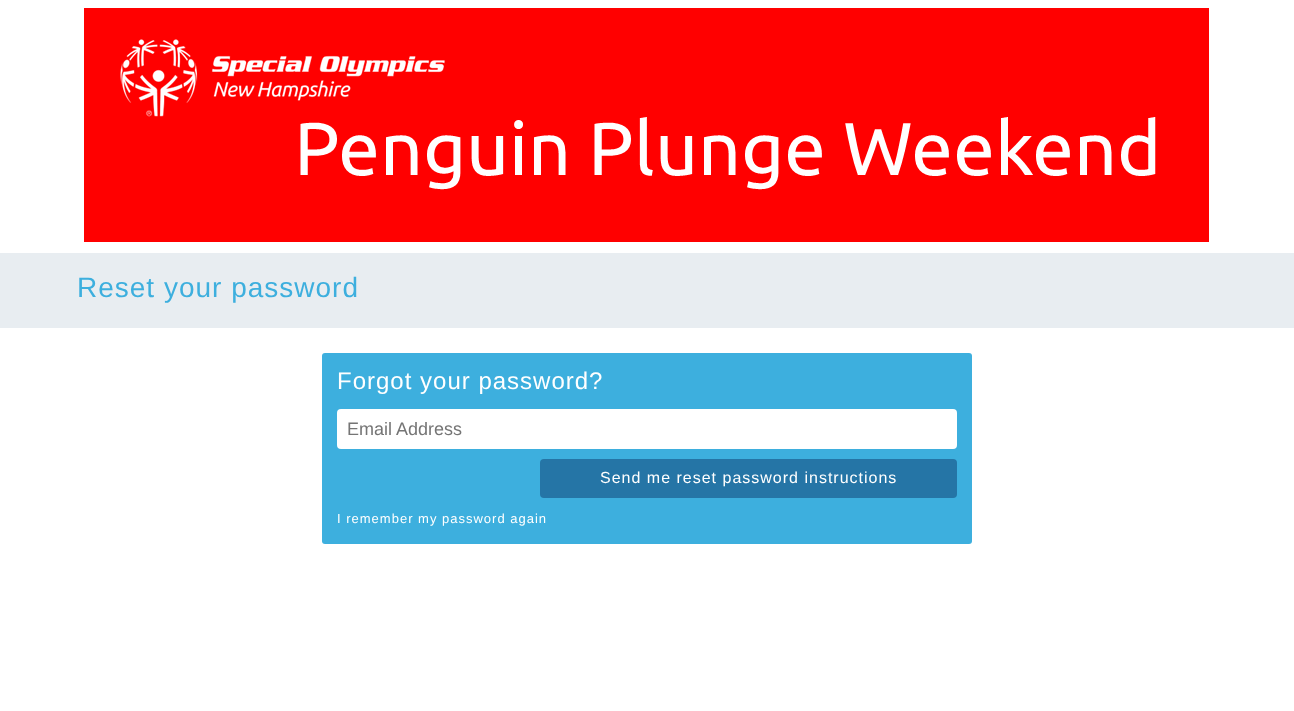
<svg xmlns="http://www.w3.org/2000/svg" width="1294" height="711">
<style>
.a{font:28px Liberation Sans;letter-spacing:1px;fill:#3dafde}
.b{font:24px Liberation Sans;letter-spacing:1px;fill:#fff}
.c{font:18px Liberation Sans;fill:#757575}
.d{font:16px Liberation Sans;letter-spacing:1px;fill:#fff}
.e{font:13px Liberation Sans;letter-spacing:1px;fill:#fff}
</style>
<rect width="100%" height="100%" fill="#fff"/>
<image href="1.png" x="84" y="8" width="1125" height="234"/>
<path fill="#e8edf1" d="M0 253h1294v75H0z"/>
<rect fill="#3dafde" x="322" y="353" width="650" height="191" rx="3"/>
<rect fill="#fff" x="337" y="409" width="620" height="40" rx="4"/>
<rect fill="#2575a6" x="540" y="459" width="417" height="39" rx="4"/>
<text class="a" x="77" y="297">Reset your password</text>
<text class="b" x="337" y="389">Forgot your password?</text>
<text class="c" x="347" y="435">Email Address</text>
<text class="d" x="600" y="483">Send me reset password instructions</text>
<text class="e" x="337" y="523">I remember my password again</text>
</svg>
